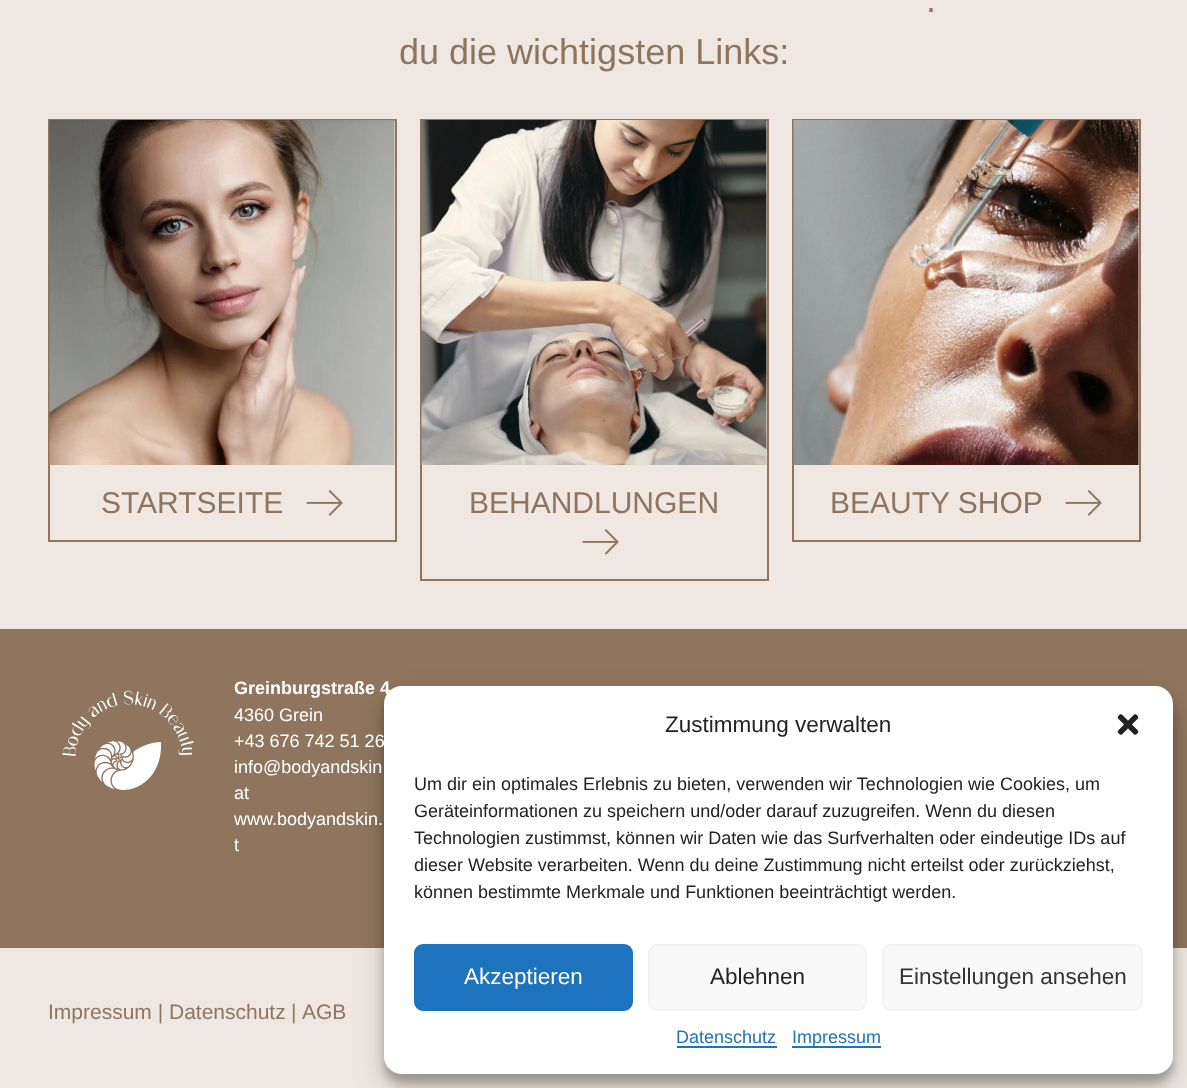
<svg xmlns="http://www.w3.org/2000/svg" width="1187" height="1088">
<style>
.a{font:36px Liberation Sans;fill:#8f755d}
.b{font:30px Liberation Sans;fill:#8f755d}
.c{font:bold 18px Liberation Sans;fill:#fff}
.d{font:18px Liberation Sans;fill:#fff}
.e{font:21px Liberation Sans;fill:#8f755d}
.f{font:22.5px Liberation Sans;fill:#222}
.g{font:18px Liberation Sans;fill:#222}
.h{font:22.5px Liberation Sans;fill:#fff}
.i{font:22.5px Liberation Sans;fill:#333}
.j{font:18px Liberation Sans;fill:#1e73be}
</style>
<rect width="100%" height="100%" fill="#efe8e2"/>
<path fill="#8f755d" d="M48 119h348v2H48z"/>
<path fill="#8f755d" d="M48 119h2v346H48z"/>
<path fill="#8f755d" d="M395 119h2v346H395z"/>
<image href="1.png" x="49" y="120" width="346" height="345"/>
<path fill="#8f755d" d="M395 465h2v77H395z"/>
<path fill="#8f755d" d="M48 540h348v2H48z"/>
<path fill="#8f755d" d="M48 465h2v77H48z"/>
<image href="2.png" x="306" y="490" width="37" height="26"/>
<path fill="#8f755d" d="M420 119h348v2H420z"/>
<path fill="#8f755d" d="M420 119h2v346H420z"/>
<path fill="#8f755d" d="M767 119h2v346H767z"/>
<image href="3.png" x="421" y="120" width="346" height="345"/>
<path fill="#8f755d" d="M767 465h2v116H767z"/>
<path fill="#8f755d" d="M420 579h348v2H420z"/>
<path fill="#8f755d" d="M420 465h2v116H420z"/>
<image href="2.png" x="582" y="529" width="37" height="26"/>
<path fill="#8f755d" d="M792 119h348v2H792z"/>
<path fill="#8f755d" d="M792 119h2v346H792z"/>
<path fill="#8f755d" d="M1139 119h2v346H1139z"/>
<image href="4.png" x="793" y="120" width="346" height="345"/>
<path fill="#8f755d" d="M1139 465h2v77H1139z"/>
<path fill="#8f755d" d="M792 540h348v2H792z"/>
<path fill="#8f755d" d="M792 465h2v77H792z"/>
<image href="2.png" x="1065" y="490" width="37" height="26"/>
<path fill="#8f755d" d="M0 629h1187v319H0z"/>
<image href="5.png" x="62" y="690" width="132" height="100"/>
<rect fill="#0000003b" filter="blur(4.5px)" x="384" y="695" width="789" height="388" rx="18"/>
<rect fill="#00000030" filter="blur(15px)" x="384" y="701" width="789" height="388" rx="18"/>
<rect fill="#fff" x="384" y="686" width="789" height="388" rx="18"/>
<image href="6.png" x="1117" y="714" width="22" height="21"/>
<rect fill="#1e73be" stroke="#1e73be" stroke-width="2" x="415" y="945" width="217" height="65" rx="8"/>
<rect fill="#f9f9f9" stroke="#f2f2f2" stroke-width="2" x="649" y="945" width="217" height="65" rx="8"/>
<rect fill="#f9f9f9" stroke="#f2f2f2" stroke-width="2" x="883" y="945" width="259" height="65" rx="8"/>
<path fill="#1e73be" d="M677 1046h100v2H677z"/>
<path fill="#1e73be" d="M792 1046h89v2H792z"/>
<text class="a" x="926" y="12">.</text>
<text class="a" x="399" y="64">du die wichtigsten Links:</text>
<text class="b" x="101" y="513">STARTSEITE</text>
<text class="b" x="469" y="513">BEHANDLUNGEN</text>
<text class="b" x="830" y="513">BEAUTY SHOP</text>
<text class="c" x="234" y="694">Greinburgstraße 4</text>
<text class="d" x="234" y="721">4360 Grein</text>
<text class="d" x="234" y="747">+43 676 742 51 26</text>
<text class="d" x="234" y="773">info@bodyandskin</text>
<text class="d" x="234" y="799">at</text>
<text class="d" x="234" y="825">www.bodyandskin.</text>
<text class="d" x="234" y="851">t</text>
<text class="e" x="48" y="1019">Impressum | Datenschutz</text>
<text class="e" x="291" y="1019">|</text>
<text class="e" x="302" y="1019">AGB</text>
<text class="f" x="665" y="732">Zustimmung verwalten</text>
<text class="g" x="414" y="790">Um dir ein optimales Erlebnis zu bieten, verwenden wir Technologien wie Cookies, um</text>
<text class="g" x="414" y="817">Geräteinformationen zu speichern und/oder darauf zuzugreifen. Wenn du diesen</text>
<text class="g" x="414" y="844">Technologien zustimmst, können wir Daten wie das Surfverhalten oder eindeutige IDs auf</text>
<text class="g" x="414" y="871">dieser Website verarbeiten. Wenn du deine Zustimmung nicht erteilst oder zurückziehst,</text>
<text class="g" x="414" y="898">können bestimmte Merkmale und Funktionen beeinträchtigt werden.</text>
<text class="h" x="464" y="984">Akzeptieren</text>
<text class="f" x="710" y="984">Ablehnen</text>
<text class="i" x="899" y="984">Einstellungen ansehen</text>
<text class="j" x="676" y="1043">Datenschutz</text>
<text class="j" x="792" y="1043">Impressum</text>
</svg>
